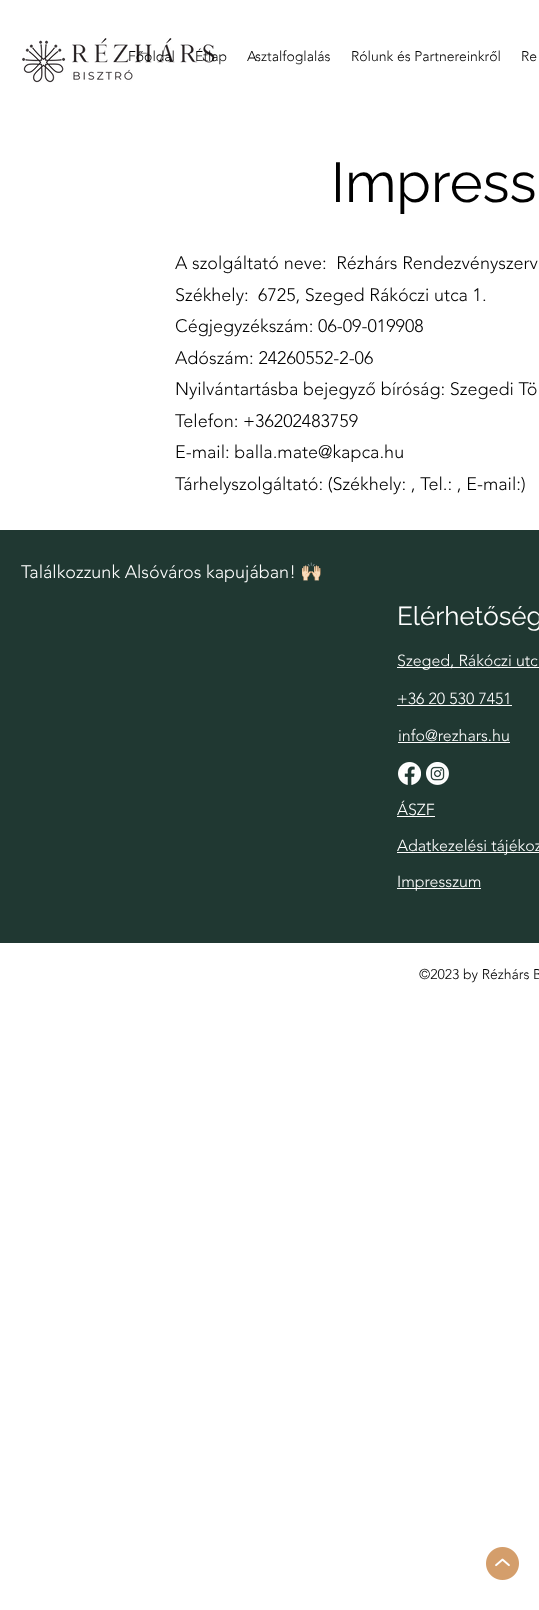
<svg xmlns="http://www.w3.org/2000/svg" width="539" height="1610">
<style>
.a{font:300 14px 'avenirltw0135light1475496';fill:#000}
.b{font:56px Raleway;fill:#000}
.c{font:300 18px 'avenirltw0135light1475496';fill:#000}
.d{font:300 18px 'avenirltw0135light1475496';fill:#fff}
.e{font:18px Noto Color Emoji;fill:#fff}
.f{font:26px Raleway;fill:#fff}
.g{font:300 16px 'avenirltw0135light1475496';fill:#fff}
</style>
<rect width="100%" height="100%" fill="#fff"/>
<image href="1.png" x="22" y="38" width="193" height="45"/>
<path fill="#203832" d="M0 530h539v413H0z"/>
<path fill="#fff" d="M397 667h142v1H397z"/>
<path fill="#fff" d="M397 705h115v1H397z"/>
<path fill="#fff" d="M398 742h112v1H398z"/>
<image href="2.png" x="398" y="762" width="23" height="23"/>
<image href="3.png" x="426" y="762" width="23" height="23"/>
<path fill="#fff" d="M397 816h38v1H397z"/>
<path fill="#fff" d="M397 852h142v1H397z"/>
<path fill="#fff" d="M397 888h84v1H397z"/>
<image href="4.png" x="486" y="1547" width="33" height="33"/>
<text class="a" x="128" y="61">Főoldal</text>
<text class="a" x="195" y="61">Étlap</text>
<text class="a" x="247" y="61">Asztalfoglalás</text>
<text class="a" x="351" y="61">Rólunk és Partnereinkről</text>
<text class="a" x="521" y="61">Re</text>
<text class="b" x="331" y="202">Impress</text>
<text class="c" xml:space="preserve" x="175" y="269">A szolgáltató neve:  Rézhárs Rendezvényszerv</text>
<text class="c" xml:space="preserve" x="175" y="301">Székhely:  6725, Szeged Rákóczi utca 1.</text>
<text class="c" x="175" y="332">Cégjegyzékszám: 06-09-019908</text>
<text class="c" x="175" y="364">Adószám: 24260552-2-06</text>
<text class="c" x="175" y="395">Nyilvántartásba bejegyző bíróság: Szegedi Tö</text>
<text class="c" x="175" y="427">Telefon: +36202483759</text>
<text class="c" x="175" y="458">E-mail: balla.mate@kapca.hu</text>
<text class="c" x="175" y="490">Tárhelyszolgáltató: (Székhely: , Tel.: , E-mail:)</text>
<text class="d" x="21" y="578">Találkozzunk Alsóváros kapujában!</text>
<text class="e" x="300" y="578">🙌🏻</text>
<text class="f" x="397" y="625">Elérhetőség</text>
<text class="g" x="397" y="666">Szeged, Rákóczi utc</text>
<text class="g" x="397" y="704">+36 20 530 7451</text>
<text class="g" x="398" y="741">info@rezhars.hu</text>
<text class="g" x="397" y="815">ÁSZF</text>
<text class="g" x="397" y="851">Adatkezelési tájékoz</text>
<text class="g" x="397" y="887">Impresszum</text>
<text class="a" x="419" y="979">©2023 by Rézhárs B</text>
</svg>
